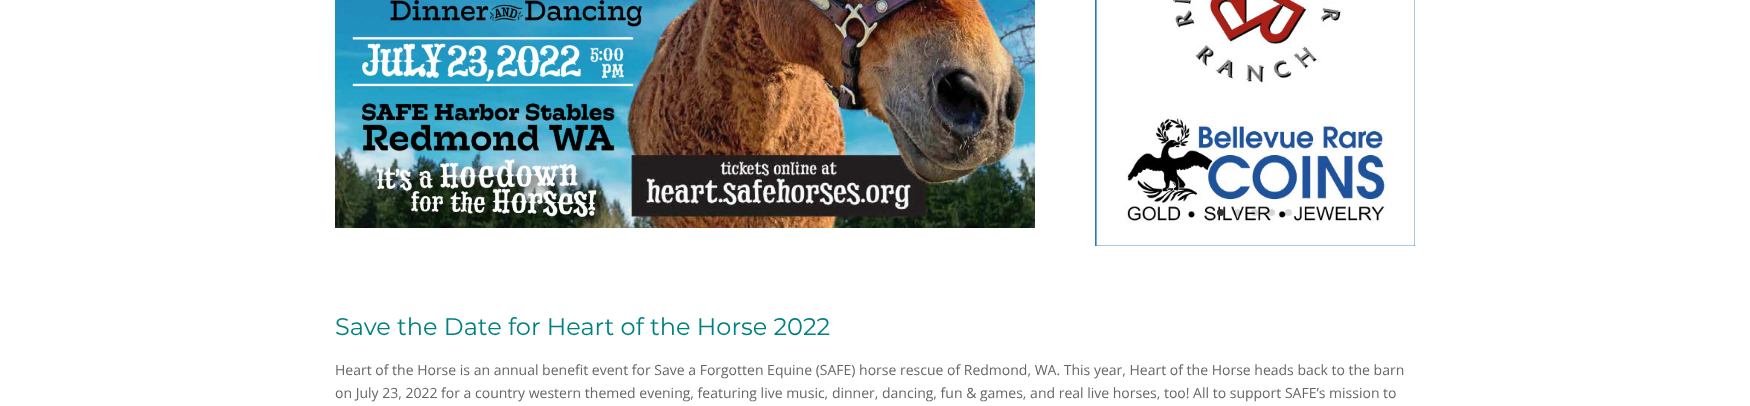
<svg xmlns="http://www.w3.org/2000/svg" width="1750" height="406">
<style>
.a{font:24px Montserrat;fill:#008080}
.b{font:14px Open Sans;fill:#666}
</style>
<rect width="100%" height="100%" fill="#fff"/>
<image href="1.png" x="335" y="0" width="700" height="228"/>
<image href="2.png" x="1095" y="0" width="320" height="246"/>
<circle fill="#333" cx="1220.5" cy="212.5" r="3.5"/>
<circle fill="#00000026" cx="1237.5" cy="212.5" r="3.5"/>
<circle fill="#00000026" cx="1254.5" cy="212.5" r="3.5"/>
<circle fill="#00000026" cx="1271.5" cy="212.5" r="3.5"/>
<circle fill="#00000026" cx="1288.5" cy="212.5" r="3.5"/>
<text class="a" x="335" y="335">Save the Date for Heart of the Horse 2022</text>
<text class="b" x="335" y="375">Heart of the Horse is an annual benefit event for Save a Forgotten Equine (SAFE) horse rescue of Redmond, WA. This year, Heart of the Horse heads back to the barn</text>
<text class="b" x="335" y="398">on July 23, 2022 for a country western themed evening, featuring live music, dinner, dancing, fun &amp; games, and real live horses, too! All to support SAFE’s mission to</text>
</svg>
